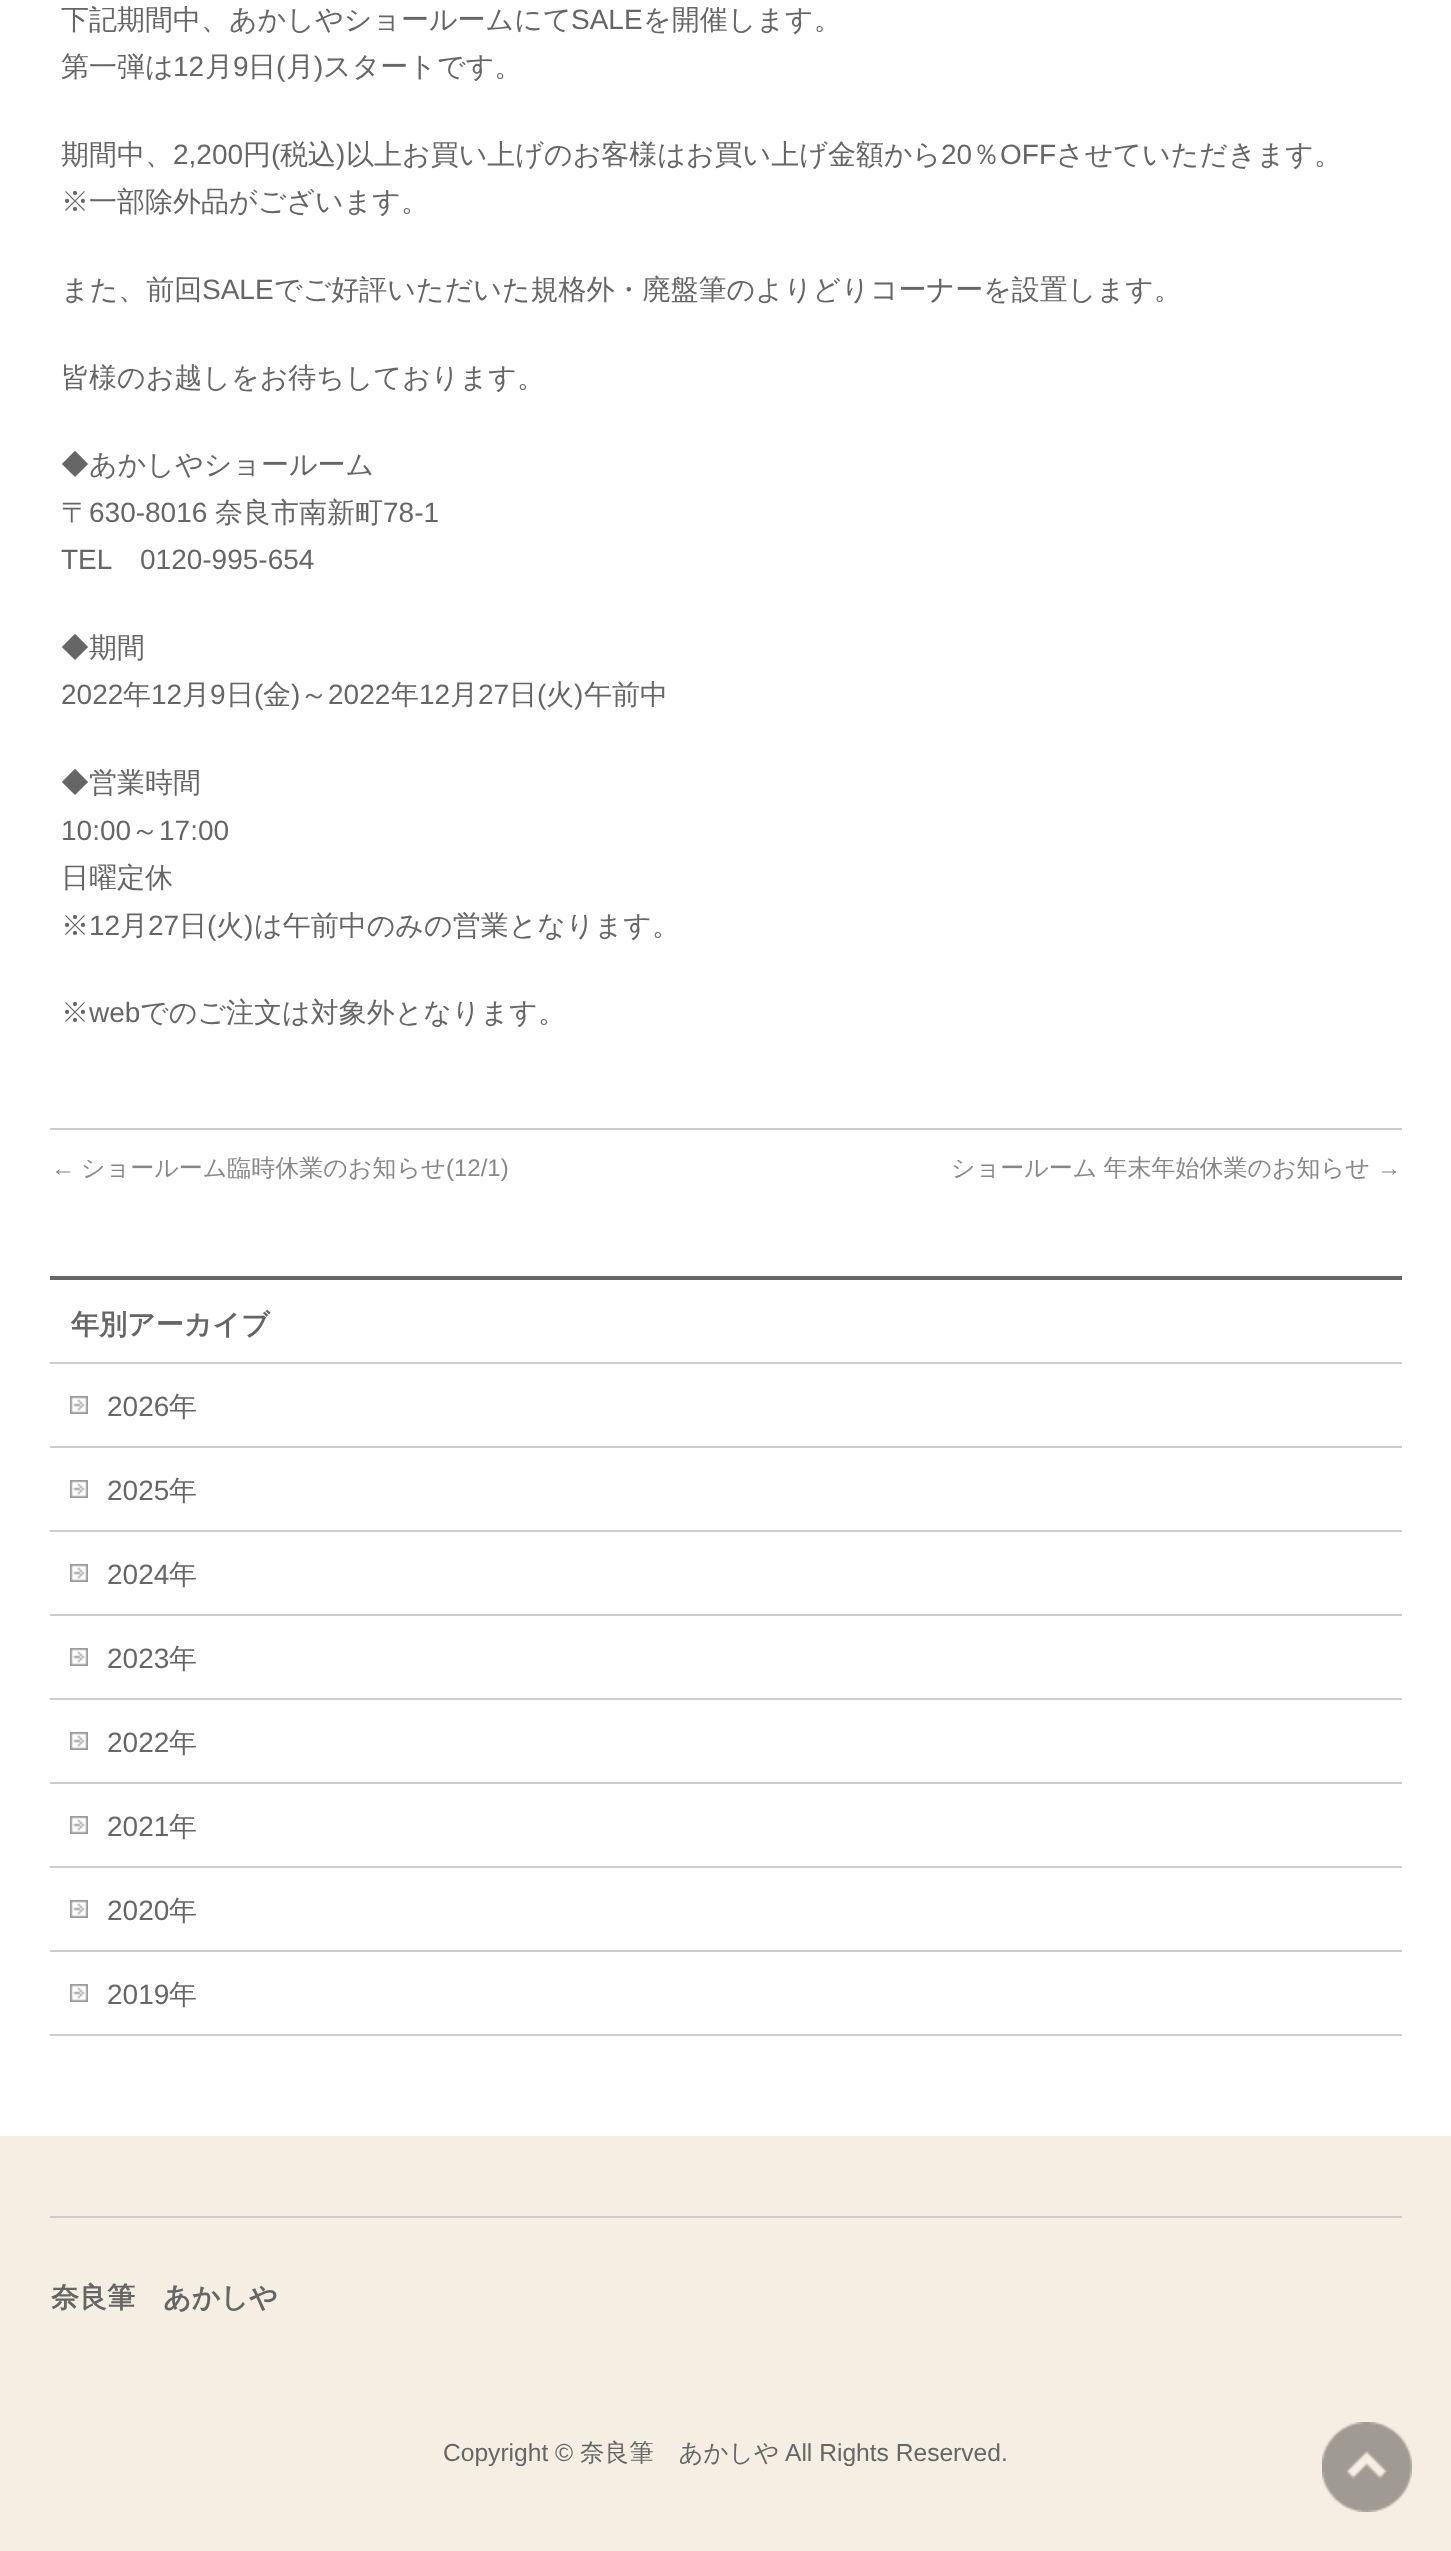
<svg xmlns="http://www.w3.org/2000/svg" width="1451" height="2551">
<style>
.a{font:500 28px WenQuanYi Zen Hei;fill:#666}
.b{font:28px Liberation Sans;fill:#666}
.c{font:24px Liberation Sans;fill:#888}
.d{font:500 24px WenQuanYi Zen Hei;fill:#888}
.e{font:bold 28px WenQuanYi Zen Hei;fill:#666}
.f{font:24.6px Liberation Sans;fill:#666}
.g{font:500 24.6px WenQuanYi Zen Hei;fill:#666}
</style>
<rect width="100%" height="100%" fill="#fff"/>
<path fill="#ccc" d="M50 1128h1352v2H50z"/>
<path fill="#666" d="M50 1276h1352v4H50z"/>
<path fill="#ccc" d="M50 1362h1352v2H50z"/>
<path fill="#ccc" d="M50 1446h1352v2H50z"/>
<image href="1.png" x="70" y="1396" width="18" height="18"/>
<path fill="#ccc" d="M50 1530h1352v2H50z"/>
<image href="1.png" x="70" y="1480" width="18" height="18"/>
<path fill="#ccc" d="M50 1614h1352v2H50z"/>
<image href="1.png" x="70" y="1564" width="18" height="18"/>
<path fill="#ccc" d="M50 1698h1352v2H50z"/>
<image href="1.png" x="70" y="1648" width="18" height="18"/>
<path fill="#ccc" d="M50 1782h1352v2H50z"/>
<image href="1.png" x="70" y="1732" width="18" height="18"/>
<path fill="#ccc" d="M50 1866h1352v2H50z"/>
<image href="1.png" x="70" y="1816" width="18" height="18"/>
<path fill="#ccc" d="M50 1950h1352v2H50z"/>
<image href="1.png" x="70" y="1900" width="18" height="18"/>
<path fill="#ccc" d="M50 2034h1352v2H50z"/>
<image href="1.png" x="70" y="1984" width="18" height="18"/>
<path fill="#f4efe2" d="M0 2136h1451v415H0z"/>
<path fill="#ccc" d="M50 2216h1352v2H50z"/>
<image href="2.png" x="1322" y="2422" width="90" height="90"/>
<text class="a" x="61" y="29">下記期間中、あかしやショールームにて</text>
<text class="b" x="571" y="29">SALE</text>
<text class="a" x="643" y="29">を開催します。</text>
<text class="a" x="61" y="76">第一弾は</text>
<text class="b" x="173" y="76">12</text>
<text class="a" x="205" y="76">月</text>
<text class="b" x="233" y="76">9</text>
<text class="a" x="248" y="76">日</text>
<text class="b" x="276" y="76">(</text>
<text class="a" x="286" y="76">月</text>
<text class="b" x="314" y="76">)</text>
<text class="a" x="323" y="76">スタートです。</text>
<text class="a" x="61" y="164">期間中、</text>
<text class="b" x="173" y="164">2,200</text>
<text class="a" x="243" y="164">円</text>
<text class="b" x="271" y="164">(</text>
<text class="a" x="280" y="164">税込</text>
<text class="b" x="336" y="164">)</text>
<text class="a" x="346" y="164">以上お買い上げのお客様はお買い上げ金額から</text>
<text class="b" x="941" y="164">20</text>
<text class="a" x="972" y="164">％</text>
<text class="b" x="1000" y="164">OFF</text>
<text class="a" x="1056" y="164">させていただきます。</text>
<text class="a" x="61" y="211">※一部除外品がございます。</text>
<text class="a" x="61" y="299">また、前回</text>
<text class="b" x="202" y="299">SALE</text>
<text class="a" x="274" y="299">でご好評いただいた規格外・廃盤筆のよりどりコーナーを設置します。</text>
<text class="a" x="61" y="387">皆様のお越しをお待ちしております。</text>
<text class="a" x="61" y="474">◆あかしやショールーム</text>
<text class="a" x="61" y="522">〒</text>
<text class="b" x="89" y="522">630-8016</text>
<text class="a" x="215" y="522">奈良市南新町</text>
<text class="b" x="383" y="522">78-1</text>
<text class="b" x="61" y="569">TEL</text>
<text class="b" x="140" y="569">0120-995-654</text>
<text class="a" x="61" y="657">◆期間</text>
<text class="b" x="61" y="704">2022</text>
<text class="a" x="123" y="704">年</text>
<text class="b" x="151" y="704">12</text>
<text class="a" x="182" y="704">月</text>
<text class="b" x="210" y="704">9</text>
<text class="a" x="226" y="704">日</text>
<text class="b" x="254" y="704">(</text>
<text class="a" x="263" y="704">金</text>
<text class="b" x="291" y="704">)</text>
<text class="a" x="300" y="704">～</text>
<text class="b" x="328" y="704">2022</text>
<text class="a" x="391" y="704">年</text>
<text class="b" x="419" y="704">12</text>
<text class="a" x="450" y="704">月</text>
<text class="b" x="478" y="704">27</text>
<text class="a" x="509" y="704">日</text>
<text class="b" x="537" y="704">(</text>
<text class="a" x="546" y="704">火</text>
<text class="b" x="574" y="704">)</text>
<text class="a" x="584" y="704">午前中</text>
<text class="a" x="61" y="792">◆営業時間</text>
<text class="b" x="61" y="840">10:00</text>
<text class="a" x="131" y="840">～</text>
<text class="b" x="159" y="840">17:00</text>
<text class="a" x="61" y="887">日曜定休</text>
<text class="a" x="61" y="935">※</text>
<text class="b" x="89" y="935">12</text>
<text class="a" x="120" y="935">月</text>
<text class="b" x="148" y="935">27</text>
<text class="a" x="179" y="935">日</text>
<text class="b" x="207" y="935">(</text>
<text class="a" x="216" y="935">火</text>
<text class="b" x="244" y="935">)</text>
<text class="a" x="254" y="935">は午前中のみの営業となります。</text>
<text class="a" x="61" y="1022">※</text>
<text class="b" x="89" y="1022">web</text>
<text class="a" x="140" y="1022">でのご注文は対象外となります。</text>
<text class="c" x="51" y="1176">←</text>
<text class="d" x="81" y="1176">ショールーム臨時休業のお知らせ</text>
<text class="c" x="446" y="1176">(12/1)</text>
<text class="d" x="951" y="1176" word-spacing="-1">ショールーム 年末年始休業のお知らせ</text>
<text class="c" x="1377" y="1176">→</text>
<text class="e" x="71" y="1334">年別アーカイブ</text>
<text class="b" x="107" y="1416">2026</text>
<text class="a" x="169" y="1416">年</text>
<text class="b" x="107" y="1500">2025</text>
<text class="a" x="169" y="1500">年</text>
<text class="b" x="107" y="1584">2024</text>
<text class="a" x="169" y="1584">年</text>
<text class="b" x="107" y="1668">2023</text>
<text class="a" x="169" y="1668">年</text>
<text class="b" x="107" y="1752">2022</text>
<text class="a" x="169" y="1752">年</text>
<text class="b" x="107" y="1836">2021</text>
<text class="a" x="169" y="1836">年</text>
<text class="b" x="107" y="1920">2020</text>
<text class="a" x="169" y="1920">年</text>
<text class="b" x="107" y="2004">2019</text>
<text class="a" x="169" y="2004">年</text>
<text class="e" x="51" y="2307">奈良筆　あかしや</text>
<text class="f" x="443" y="2461">Copyright ©</text>
<text class="g" x="580" y="2461">奈良筆　あかしや</text>
<text class="f" x="785" y="2461">All Rights Reserved.</text>
</svg>
